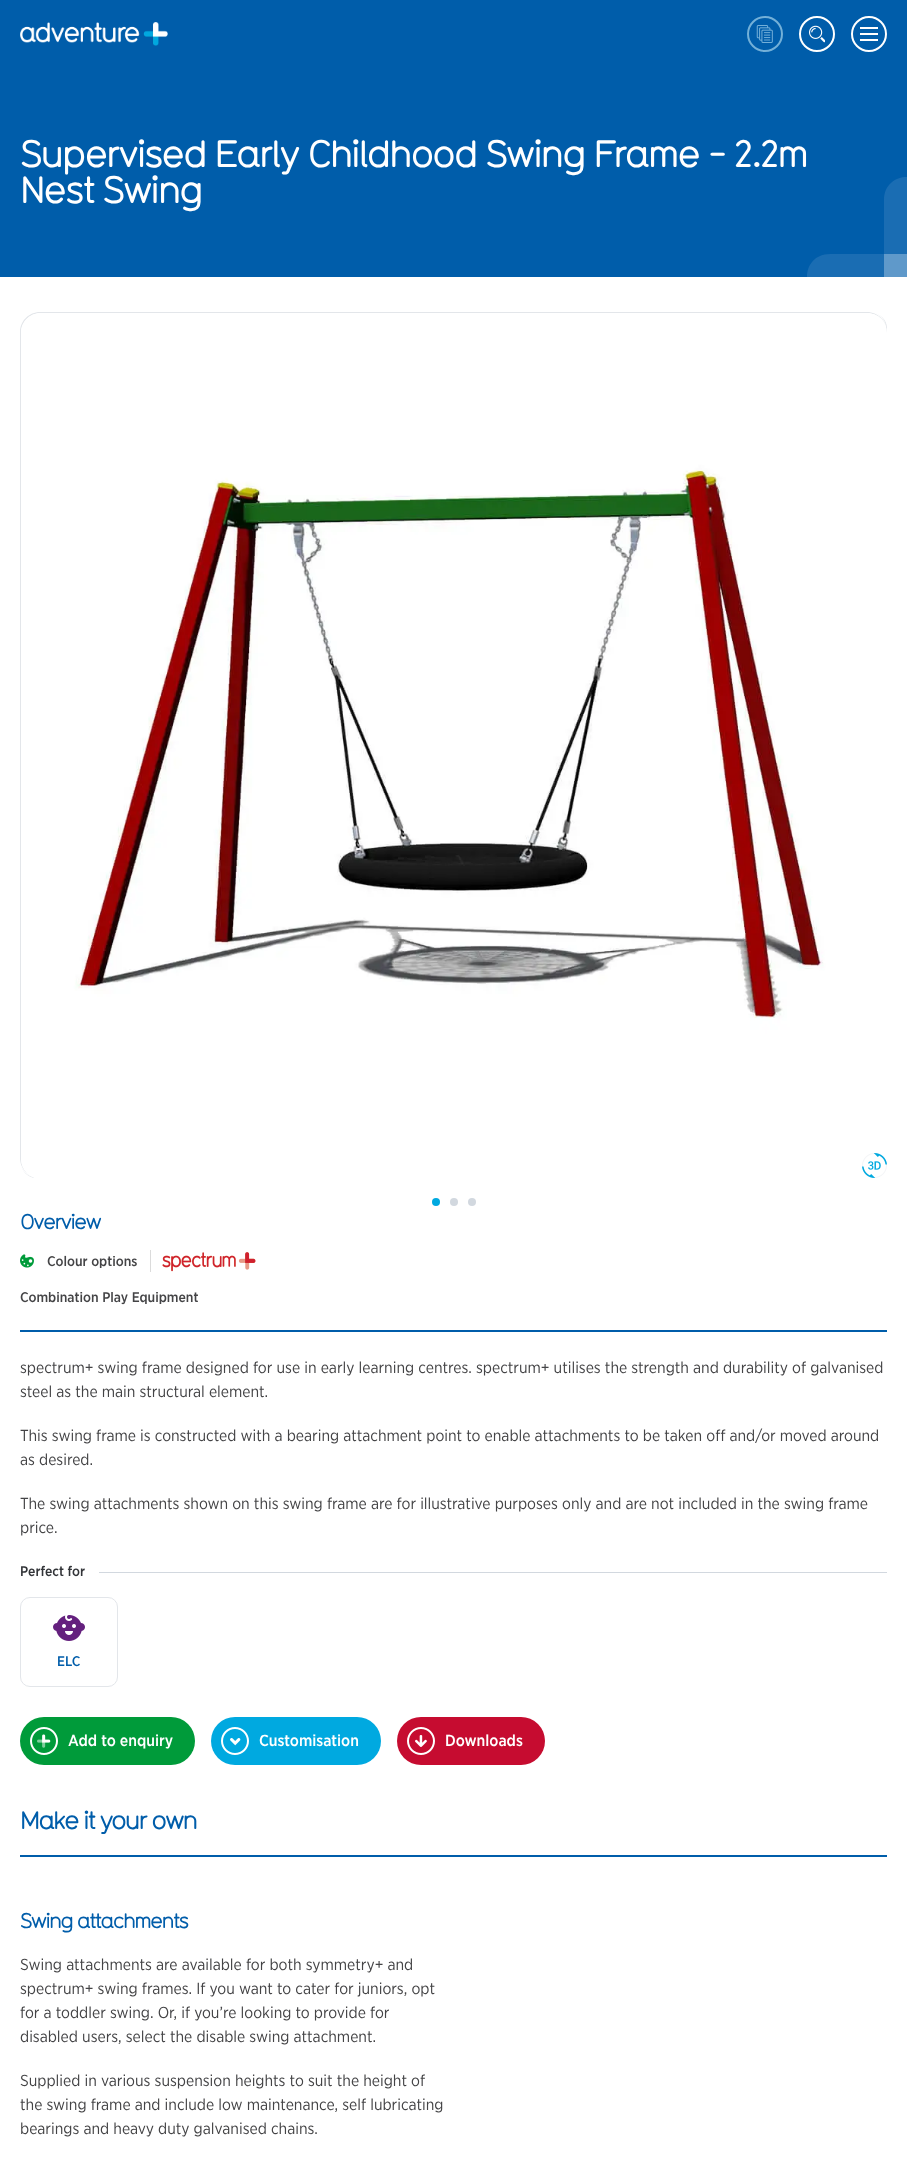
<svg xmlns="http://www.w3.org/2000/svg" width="907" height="2167">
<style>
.a{font:bold 36px 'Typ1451';letter-spacing:-1.25px;fill:#fff}
.b{font:bold 20px 'Typ1451';letter-spacing:-1.25px;fill:#005daa}
.c{font:500 14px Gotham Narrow;fill:#444446}
.d{font:16px Gotham Narrow;fill:#444446}
.e{font:500 14px Gotham Narrow;fill:#323438}
.f{font:500 14px Gotham Narrow;fill:#005daa}
.g{font:500 16px Gotham Narrow;fill:#fff}
.h{font:bold 24px 'Typ1451';letter-spacing:-1.5px;fill:#005daa}
</style>
<rect width="100%" height="100%" fill="#fff"/>
<path fill="#005daa" d="M0 0h907v277H0z"/>
<image href="1.png" x="20" y="22" width="148" height="24"/>
<circle fill="none" stroke="#73b0d8" stroke-width="2" cx="765" cy="34" r="17"/>
<image href="2.png" x="756" y="25" width="17" height="18"/>
<circle fill="none" stroke="#fff" stroke-width="2" cx="817" cy="34" r="17"/>
<image href="3.png" x="809" y="25" width="16" height="18"/>
<circle fill="none" stroke="#fff" stroke-width="2" cx="869" cy="34" r="17"/>
<path fill="#fff" d="M860 27h18v2H860z"/>
<path fill="#fff" d="M860 33h18v2H860z"/>
<path fill="#fff" d="M860 39h18v2H860z"/>
<path fill="#1a6db3" fill-rule="evenodd" d="M884 254h-54c-15 0-23 11-23 23h100v-100c-12 0-23 8-23 23z"/>
<path fill="#5f99ca" d="M884 254h23v23H884z"/>
<path fill="#e3e6ea" fill-rule="evenodd" d="M40 312h827c11 0 20 9 20 20v826c0 11-9 20-20 20h-827c-11 0-20-9-20-20v-826c0-11 9-20 20-20zm0 1h827c11 0 20 9 20 19v826c0 11-9 20-20 20h-827c-10 0-19-9-19-20v-826c0-10 9-19 19-19z"/>
<path fill="#e3e6ea" fill-rule="evenodd" d="M36 1128h806c8 0 15 7 15 15v20c0 8-7 15-15 15h-806c-8 0-15-7-15-15v-20c0-8 7-15 15-15zm0 0h806c8 0 14 7 14 15v20c0 8-6 14-14 14h-806c-8 0-15-6-15-14v-20c0-8 7-15 15-15z"/>
<path fill="#e3e6ea" fill-rule="evenodd" d="M852 313h20c8 0 15 7 15 15v805c0 8-7 15-15 15h-20c-8 0-15-7-15-15v-805c0-8 7-15 15-15zm0 0h20c8 0 14 7 14 15v805c0 8-6 14-14 14h-20c-8 0-15-6-15-14v-805c0-8 7-15 15-15z"/>
<image href="4.png" x="21" y="313" width="866" height="866"/>
<circle fill="#00a9e0" cx="436" cy="1202" r="4"/>
<circle fill="#d2d8df" cx="454" cy="1202" r="4"/>
<circle fill="#d2d8df" cx="472" cy="1202" r="4"/>
<image href="5.png" x="862" y="1153" width="25" height="25"/>
<path fill="#005daa" d="M20 1330h867v2H20z"/>
<image href="6.png" x="20" y="1254" width="14" height="14"/>
<path fill="#dbdbdb" d="M150 1250h1v22H150z"/>
<image href="7.png" x="162" y="1252" width="94" height="20"/>
<path fill="#d2d8df" d="M99 1572h788v1H99z"/>
<rect fill="none" stroke="#e3e6ea" x="20.5" y="1597.5" width="97" height="89" rx="9.5"/>
<image href="8.png" x="53" y="1615" width="32" height="26"/>
<rect fill="#009b3a" x="20" y="1717" width="175" height="48" rx="24"/>
<image href="9.png" x="30" y="1727" width="28" height="28"/>
<rect fill="#00a9e0" x="211" y="1717" width="170" height="48" rx="24"/>
<image href="10.png" x="221" y="1727" width="28" height="28"/>
<rect fill="#c60c30" x="397" y="1717" width="148" height="48" rx="24"/>
<image href="11.png" x="407" y="1727" width="28" height="28"/>
<path fill="#005daa" d="M20 1855h867v2H20z"/>
<text class="a" x="20" y="167">Supervised Early Childhood Swing Frame - 2.2m</text>
<text class="a" x="20" y="203">Nest Swing</text>
<text class="b" x="20" y="1229">Overview</text>
<text class="c" x="47" y="1266">Colour options</text>
<text class="c" x="20" y="1302">Combination Play Equipment</text>
<text class="d" x="20" y="1373">spectrum+ swing frame designed for use in early learning centres. spectrum+ utilises the strength and durability of galvanised</text>
<text class="d" x="20" y="1397">steel as the main structural element.</text>
<text class="d" x="20" y="1441">This swing frame is constructed with a bearing attachment point to enable attachments to be taken off and/or moved around</text>
<text class="d" x="20" y="1465">as desired.</text>
<text class="d" x="20" y="1509">The swing attachments shown on this swing frame are for illustrative purposes only and are not included in the swing frame</text>
<text class="d" x="20" y="1533">price.</text>
<text class="e" x="20" y="1576">Perfect for</text>
<text class="f" x="57" y="1666">ELC</text>
<text class="g" x="68" y="1746">Add to enquiry</text>
<text class="g" x="259" y="1746">Customisation</text>
<text class="g" x="445" y="1746">Downloads</text>
<text class="h" x="20" y="1829">Make it your own</text>
<text class="b" x="20" y="1928">Swing attachments</text>
<text class="d" x="20" y="1970">Swing attachments are available for both symmetry+ and</text>
<text class="d" x="20" y="1994">spectrum+ swing frames. If you want to cater for juniors, opt</text>
<text class="d" x="20" y="2018">for a toddler swing. Or, if you’re looking to provide for</text>
<text class="d" x="20" y="2042">disabled users, select the disable swing attachment.</text>
<text class="d" x="20" y="2086">Supplied in various suspension heights to suit the height of</text>
<text class="d" x="20" y="2110">the swing frame and include low maintenance, self lubricating</text>
<text class="d" x="20" y="2134">bearings and heavy duty galvanised chains.</text>
</svg>
